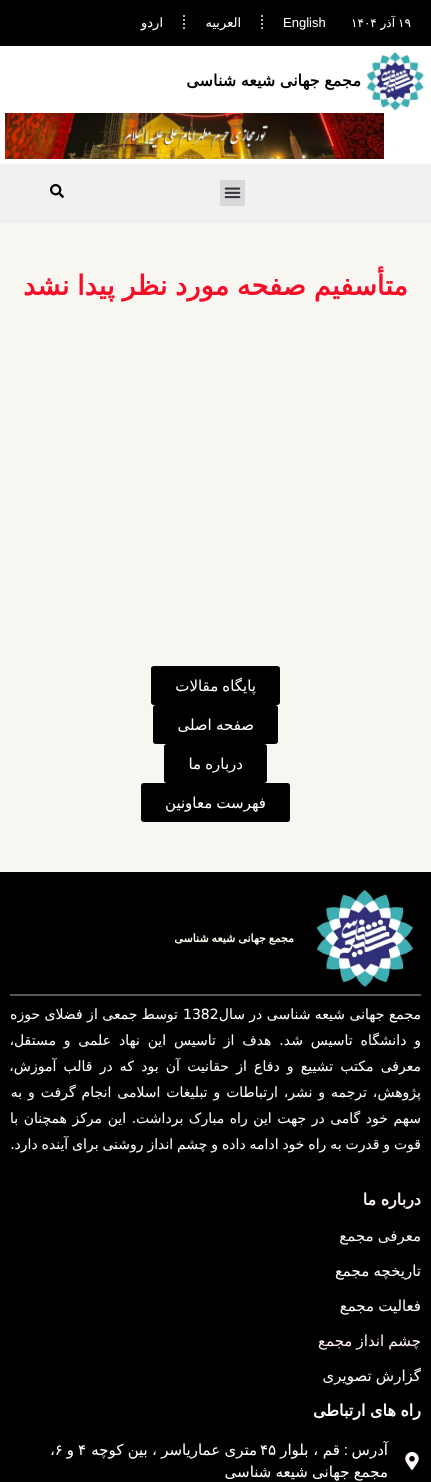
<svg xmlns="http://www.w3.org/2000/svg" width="431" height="1482">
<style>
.a{font:12px DejaVu Sans;fill:#fff}
.b{font:12px DejaVu Sans;direction:rtl;fill:#fff}
.c{font:13px Liberation Sans;fill:#fff}
.d{font:13px DejaVu Sans;direction:rtl;fill:#fff}
.e{font:bold 16px DejaVu Sans;direction:rtl;fill:#000}
.f{font:bold 27.3px DejaVu Sans;direction:rtl;fill:#f70d28}
.g{font:15px DejaVu Sans;direction:rtl;fill:#fff}
.h{font:bold 11px DejaVu Sans;direction:rtl;fill:#ffffef}
.i{font:14px DejaVu Sans;direction:rtl;fill:#fff}
.j{font:14px DejaVu Sans;fill:#fff}
.k{font:bold 16px DejaVu Sans;direction:rtl;fill:#fff0f0}
.l{font:15px DejaVu Sans;direction:rtl;fill:#f7f1f1}
.m{font:15px DejaVu Sans;direction:rtl;fill:#fff9f9}
.n{font:15px DejaVu Sans;direction:rtl;fill:#fff0f0}
.o{font:bold 16px DejaVu Sans;direction:rtl;fill:#fff}
.p{font:15px Liberation Sans;direction:rtl;fill:#fff}
.q{font:15px DejaVu Sans;fill:#fff}
</style>
<rect width="100%" height="100%" fill="#f7f6f0"/>
<path fill="#fff" d="M0 46h431v118H0z"/>
<path fill="#000" d="M0 0h431v46H0z"/>
<path fill="none" stroke="#b7b7b7" stroke-width="2" stroke-dasharray="2 2" d="M262 15v16"/>
<path fill="none" stroke="#b7b7b7" stroke-width="2" stroke-dasharray="2 2" d="M184 15v16"/>
<image href="1.png" x="366" y="52" width="58" height="59"/>
<image href="2.png" x="5" y="113" width="379" height="46"/>
<path fill="#f1f1f1" d="M0 164h431v57H0z"/>
<path fill="#e8e8e8" d="M0 221h431v1H0z"/>
<path fill="#d8d8d8" d="M220 180h25v26H220z"/>
<image href="3.png" x="224" y="187" width="17" height="12"/>
<image href="4.png" x="50" y="184" width="14" height="14"/>
<rect fill="#000" x="151" y="666" width="129" height="39" rx="3"/>
<rect fill="#000" x="153" y="705" width="125" height="39" rx="3"/>
<rect fill="#000" x="164" y="744" width="103" height="39" rx="3"/>
<rect fill="#000" x="141" y="783" width="149" height="39" rx="3"/>
<path fill="#000" d="M0 872h431v610H0z"/>
<path fill="#53585c" d="M10 994h411v2H10z"/>
<image href="5.png" x="316" y="889" width="97" height="98"/>
<image href="6.png" x="405" y="1452" width="14" height="18"/>
<text class="a" x="398" y="27">۱۹</text>
<text class="b" x="395" y="27">آذر</text>
<text class="a" x="351" y="27">۱۴۰۴</text>
<text class="c" x="283" y="27">English</text>
<text class="d" x="241" y="27">العربیه</text>
<text class="d" x="163" y="27">اردو</text>
<text class="e" x="361" y="86" word-spacing="-0.5">مجمع جهانی شیعه شناسی</text>
<text class="f" x="408" y="295" word-spacing="-1">متأسفیم صفحه مورد نظر پیدا نشد</text>
<text class="g" x="256" y="691" word-spacing="-0.6">پایگاه مقالات</text>
<text class="g" x="254" y="730" word-spacing="-0.6">صفحه اصلی</text>
<text class="g" x="243" y="769" word-spacing="-0.6">درباره ما</text>
<text class="g" x="266" y="808" word-spacing="-0.6">فهرست معاونین</text>
<text class="h" x="294" y="942" word-spacing="-0.5">مجمع جهانی شیعه شناسی</text>
<text class="i" x="421" y="1019">مجمع جهانی شیعه شناسی در سال</text>
<text class="j" x="183" y="1019">1382</text>
<text class="i" x="178" y="1019">توسط جمعی از فضلای حوزه</text>
<text class="i" x="421" y="1045" word-spacing="3.4">و دانشگاه تاسیس شد. هدف از تاسیس این نهاد علمی و مستقل،</text>
<text class="i" x="421" y="1071" word-spacing="2.75">معرفی مکتب تشییع و دفاع از حقانیت آن بود که در قالب آموزش،</text>
<text class="i" x="421" y="1097" word-spacing="1.5">پژوهش، ترجمه و نشر، ارتباطات و تبلیغات اسلامی انجام گرفت و به</text>
<text class="i" x="421" y="1123" word-spacing="1.1">سهم خود گامی در جهت این راه مبارک برداشت. این مرکز همچنان با</text>
<text class="i" x="421" y="1149" word-spacing="-0.6">قوت و قدرت به راه خود ادامه داده و چشم انداز روشنی برای آینده دارد.</text>
<text class="k" x="421" y="1205" word-spacing="-0.5">درباره ما</text>
<text class="l" x="421" y="1241" word-spacing="-0.6">معرفی مجمع</text>
<text class="g" x="421" y="1276" word-spacing="-0.6">تاریخچه مجمع</text>
<text class="m" x="421" y="1311" word-spacing="-0.6">فعالیت مجمع</text>
<text class="n" x="421" y="1346" word-spacing="-0.6">چشم انداز مجمع</text>
<text class="m" x="421" y="1381" word-spacing="-0.6">گزارش تصویری</text>
<text class="o" x="421" y="1416" word-spacing="-0.5">راه های ارتباطی</text>
<text class="g" x="388" y="1455">آدرس</text>
<text class="p" x="348" y="1455">:</text>
<text class="g" x="340" y="1455">قم ، بلوار</text>
<text class="q" x="260" y="1455">۴۵</text>
<text class="g" x="257" y="1455" word-spacing="-0.5">متری عماریاسر ، بین کوچه</text>
<text class="q" x="78" y="1455">۴</text>
<text class="g" x="74" y="1455">و</text>
<text class="q" x="50" y="1455">،۶</text>
<text class="g" x="388" y="1477" word-spacing="-0.6">مجمع جهانی شیعه شناسی</text>
</svg>
